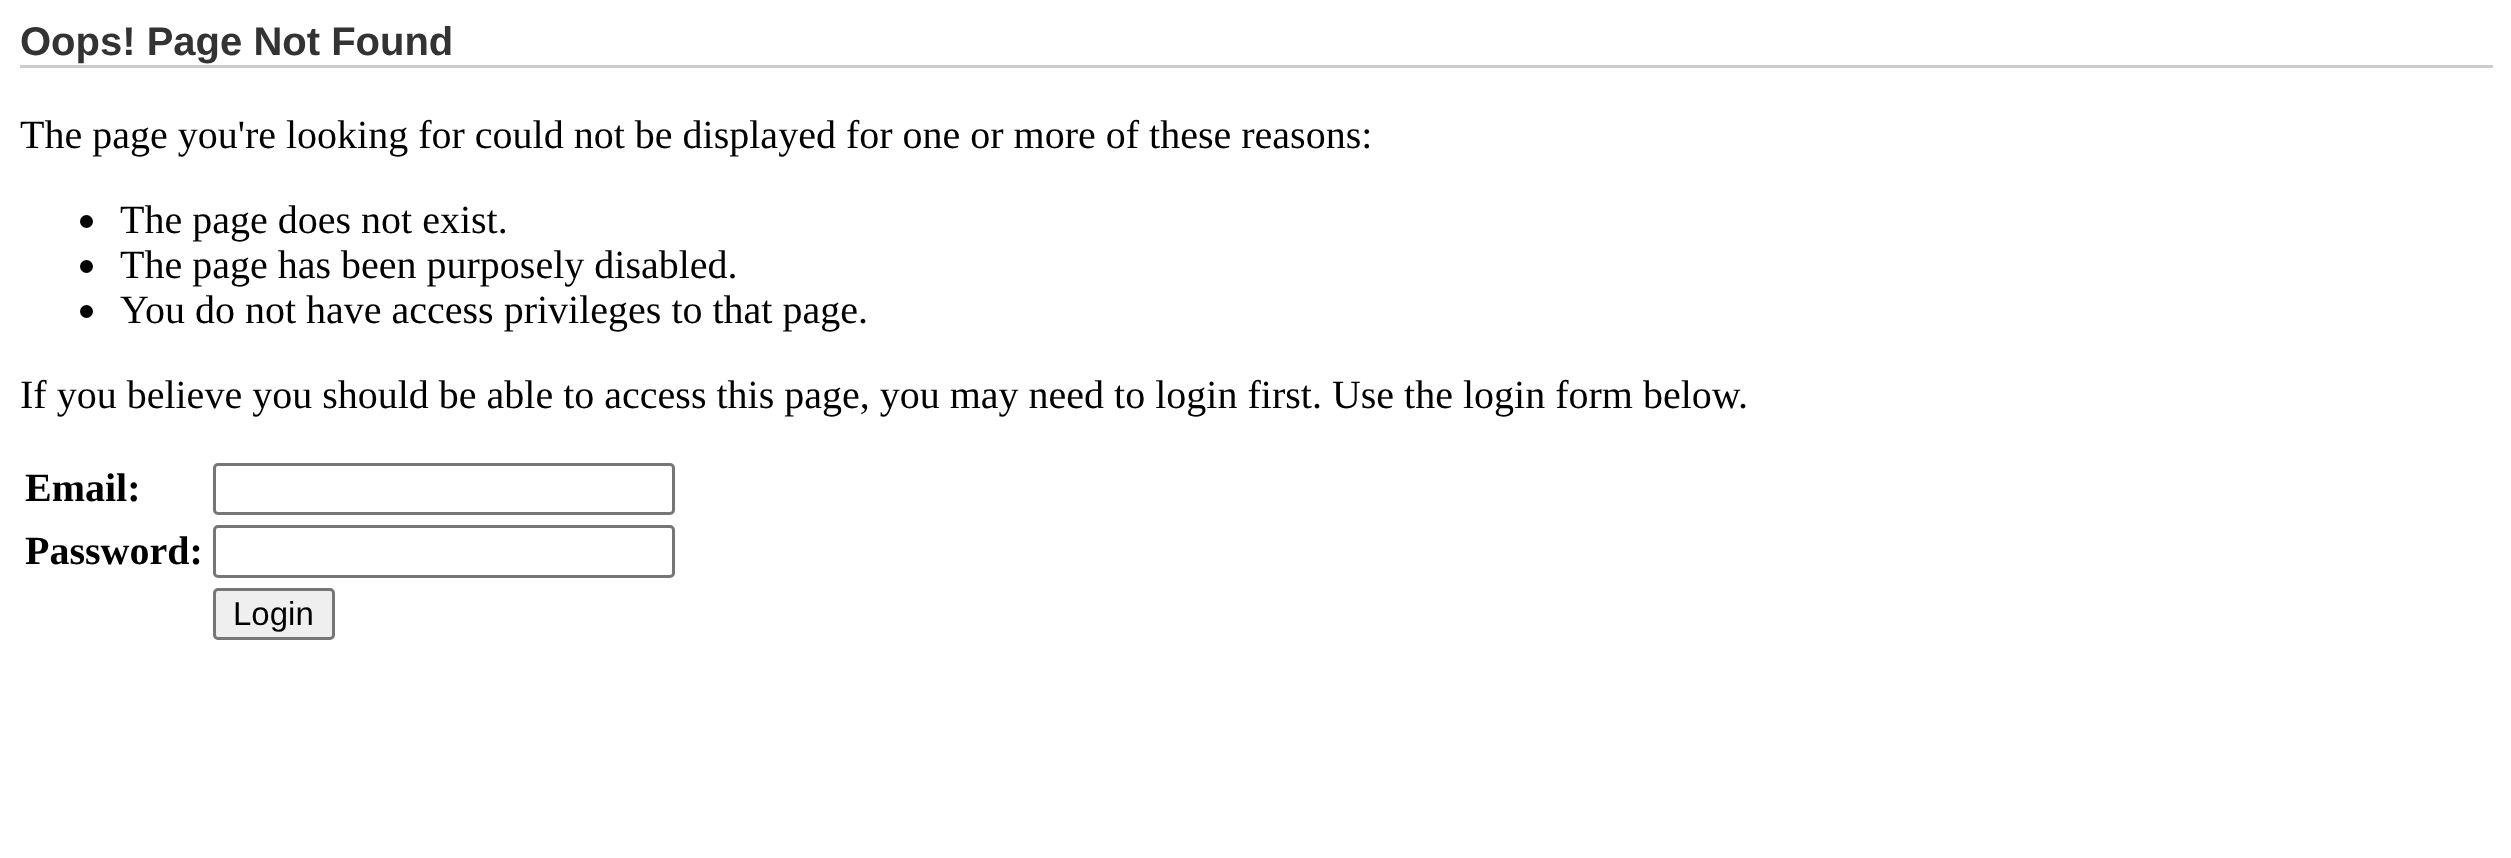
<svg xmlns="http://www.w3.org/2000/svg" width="2511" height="858">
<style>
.a{font:bold 40px Liberation Sans;fill:#333}
.b{font:40px Liberation Serif;fill:#000}
.c{font:bold 40px Liberation Serif;fill:#000}
.d{font:33px Liberation Sans;fill:#000}
</style>
<rect width="100%" height="100%" fill="#fff"/>
<path fill="#ccc" d="M20 65h2473v3H20z"/>
<circle fill="#000" cx="86.5" cy="221.5" r="6.5"/>
<circle fill="#000" cx="86.5" cy="266.5" r="6.5"/>
<circle fill="#000" cx="86.5" cy="311.5" r="6.5"/>
<rect fill="none" stroke="#767676" stroke-width="3" x="214.5" y="464.5" width="459" height="49" rx="3.5"/>
<rect fill="none" stroke="#767676" stroke-width="3" x="214.5" y="526.5" width="459" height="50" rx="3.5"/>
<rect fill="#efefef" stroke="#767676" stroke-width="3" x="214.5" y="589.5" width="119" height="49" rx="3.5"/>
<text class="a" x="20" y="55">Oops! Page Not Found</text>
<text class="b" x="20" y="148">The page you're looking for could not be displayed for one or more of these reasons:</text>
<text class="b" x="120" y="233">The page does not exist.</text>
<text class="b" x="120" y="278">The page has been purposely disabled.</text>
<text class="b" x="120" y="323">You do not have access privileges to that page.</text>
<text class="b" x="20" y="408">If you believe you should be able to access this page, you may need to login first. Use the login form below.</text>
<text class="c" x="25" y="501">Email:</text>
<text class="c" x="25" y="564">Password:</text>
<text class="d" x="233" y="625">Login</text>
</svg>
